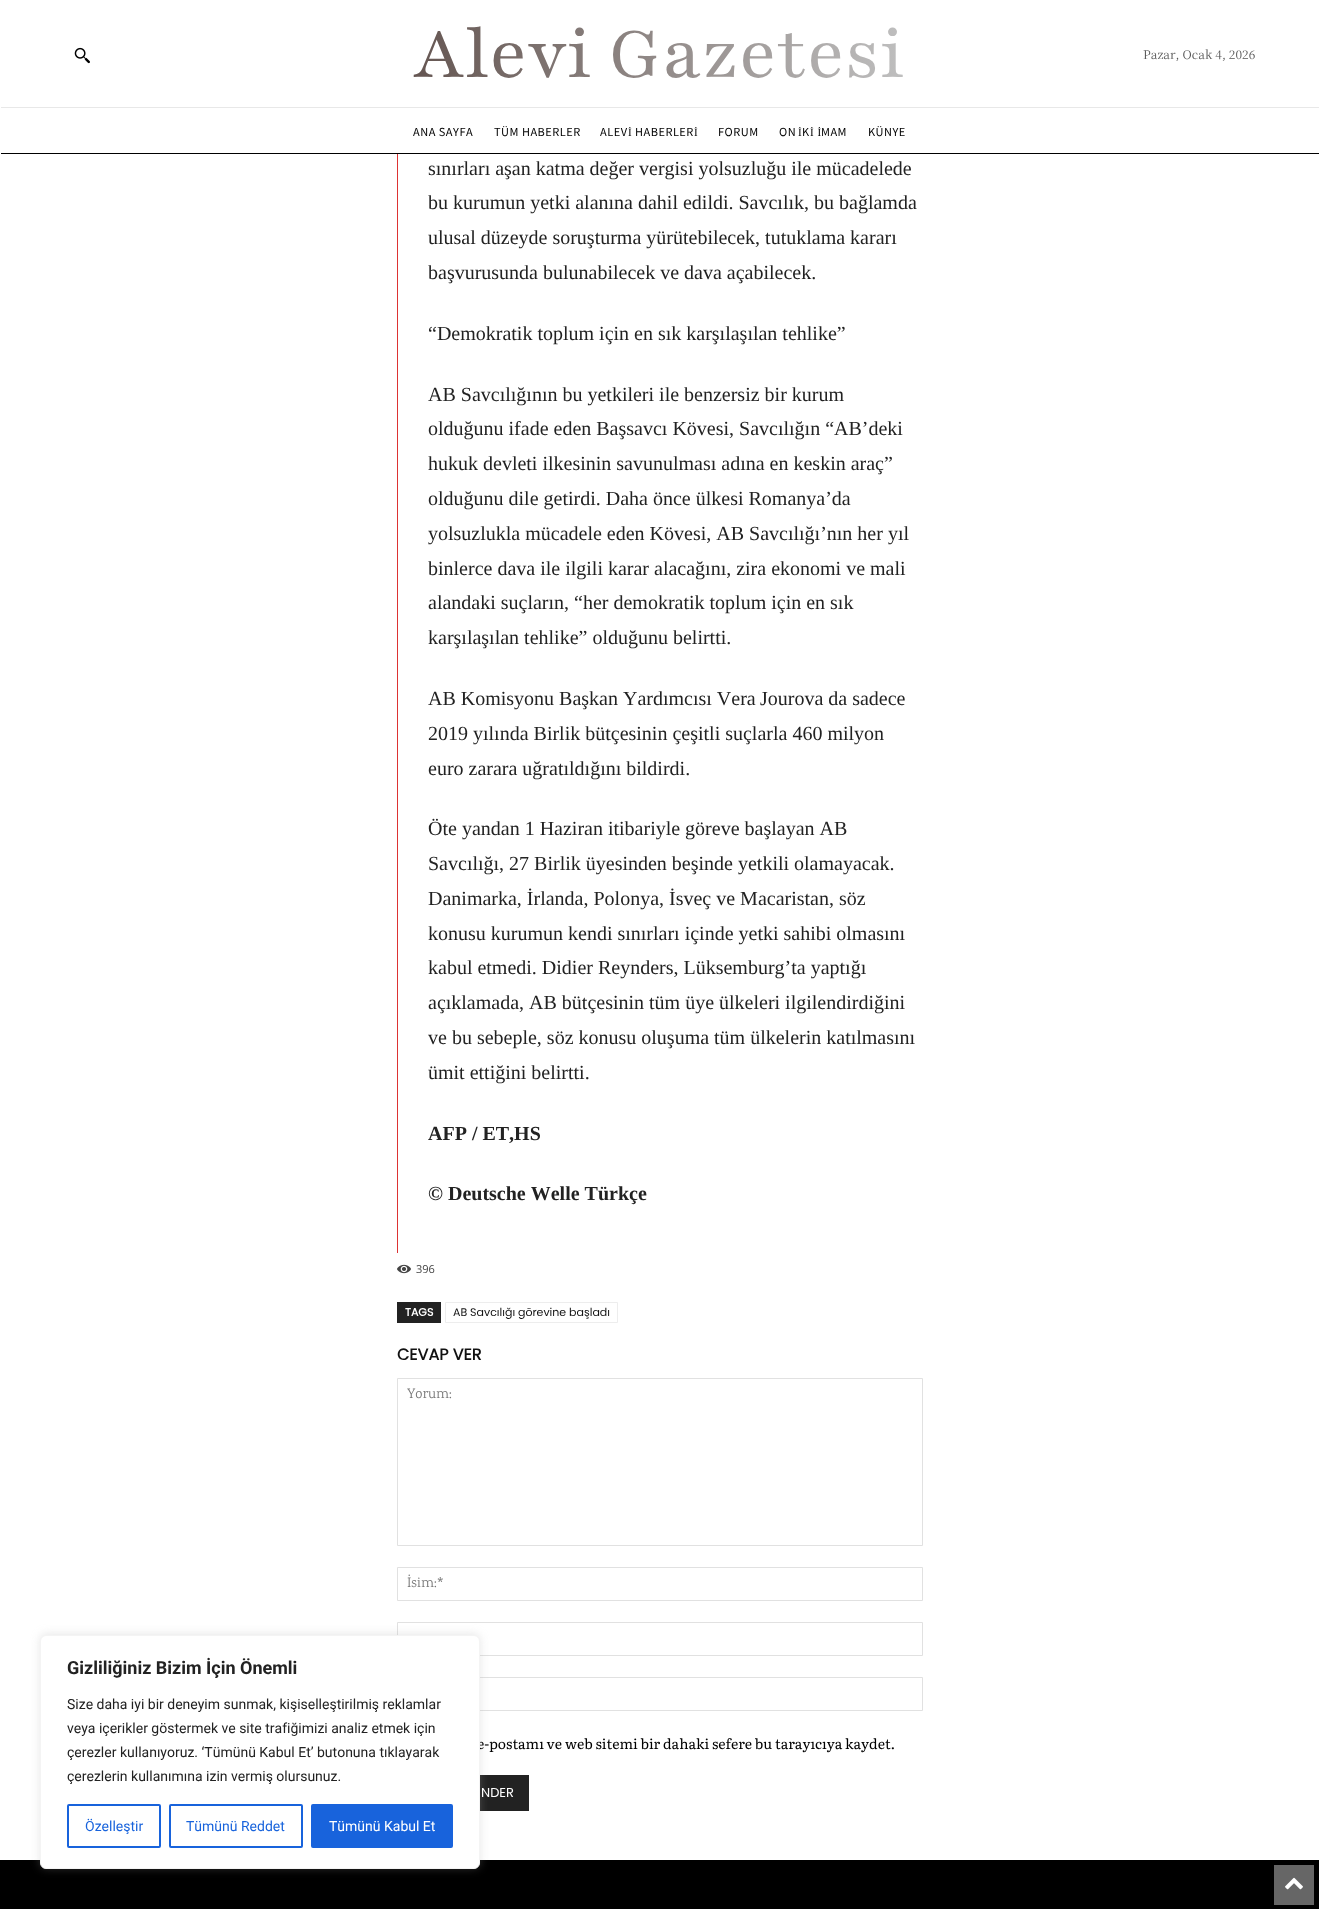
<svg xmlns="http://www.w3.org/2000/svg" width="1319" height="1909">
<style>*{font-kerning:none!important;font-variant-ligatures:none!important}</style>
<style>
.a{font:80px 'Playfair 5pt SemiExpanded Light';fill:url(#g1)}
.b{font:12px Noto Serif JP;fill:#565656}
.c{font:11px Noto Sans JP;letter-spacing:0.5px;fill:#000}
.d{font:11px Liberation Serif;letter-spacing:0.5px;fill:#000}
.e{font:20px Liberation Serif;fill:#222}
.f{font:bold 20px Liberation Serif;fill:#222}
.g{font:11px Open Sans;fill:#444}
.h{font:bold 11px Poppins;fill:#fff}
.i{font:11px Poppins;fill:#111}
.j{font:bold 16px Poppins;fill:#111}
.k{font:14px Karma;fill:#757575}
.l{font:14px Literata;fill:#000}
.m{font:14px Roboto;fill:#fff}
.n{font:14px Roboto;fill:#1863dc}
.o{font:14px Roboto;fill:#222}
.p{font:bold 18px Roboto;fill:#222}
.q{font:13px Poppins;fill:#fff}
</style>
<defs>
<linearGradient id="g1" gradientUnits="userSpaceOnUse" x1="905" y1="54" x2="414" y2="54"><stop offset="0" stop-color="#bfbfbf"/><stop offset="1" stop-color="#655652"/></linearGradient>
</defs>
<rect width="100%" height="100%" fill="#fff"/>
<path fill="none" stroke="#e1e1e1" d="M397.5 1622.5h525v33H397.5z"/>
<path fill="none" stroke="#e1e1e1" d="M397.5 1677.5h525v33H397.5z"/>
<path fill="#222" d="M480 1775h49v36H480z"/>
<path fill="#000" d="M0 1860h1319v49H0z"/>
<rect fill="#acabab4d" filter="blur(5px)" x="40" y="1634" width="440" height="234" rx="6"/>
<image href="1.png" x="74" y="47" width="16" height="17"/>
<path fill="#e8e8e8" d="M1 107h1318v1H1z"/>
<path fill="#000" d="M1 153h1318v1H1z"/>
<path fill="#d33" d="M397 154h1v1099H397z"/>
<image href="2.png" x="397" y="1264" width="14" height="10"/>
<path fill="#222" d="M397 1302h44v21H397z"/>
<path fill="none" stroke="#ededed" d="M445.5 1302.5h172v20H445.5z"/>
<path fill="none" stroke="#e1e1e1" d="M397.5 1378.5h525v167H397.5z"/>
<path fill="none" stroke="#e1e1e1" d="M397.5 1567.5h525v33H397.5z"/>
<path fill="#666" d="M1274 1865h40v40H1274z"/>
<image href="3.png" x="1285" y="1877" width="18" height="13"/>
<text class="a" x="414" y="77">Alevi Gazetesi</text>
<text class="b" x="1143" y="59">Pazar, Ocak 4, 2026</text>
<text class="c" x="413" y="136">ANA SAYFA</text>
<text class="c" x="494" y="136">TÜM HABERLER</text>
<text class="c" x="600" y="136">ALEV</text>
<text class="d" x="628" y="136">İ</text>
<text class="c" x="635" y="136">HABERLER</text>
<text class="d" x="694" y="136">İ</text>
<text class="c" x="718" y="136">FORUM</text>
<text class="c" x="779" y="136">ON</text>
<text class="d" x="798" y="136">İ</text>
<text class="c" x="802" y="136">K</text>
<text class="d" x="810" y="136">İ İ</text>
<text class="c" x="821" y="136">MAM</text>
<text class="c" x="868" y="136">KÜNYE</text>
<text class="e" x="428" y="175">sınırları aşan katma değer vergisi yolsuzluğu ile mücadelede</text>
<text class="e" x="428" y="209">bu kurumun yetki alanına dahil edildi. Savcılık, bu bağlamda</text>
<text class="e" x="428" y="244">ulusal düzeyde soruşturma yürütebilecek, tutuklama kararı</text>
<text class="e" x="428" y="279">başvurusunda bulunabilecek ve dava açabilecek.</text>
<text class="e" x="428" y="340">“Demokratik toplum için en sık karşılaşılan tehlike”</text>
<text class="e" x="428" y="401">AB Savcılığının bu yetkileri ile benzersiz bir kurum</text>
<text class="e" x="428" y="435">olduğunu ifade eden Başsavcı Kövesi, Savcılığın “AB’deki</text>
<text class="e" x="428" y="470">hukuk devleti ilkesinin savunulması adına en keskin araç”</text>
<text class="e" x="428" y="505">olduğunu dile getirdi. Daha önce ülkesi Romanya’da</text>
<text class="e" x="428" y="540">yolsuzlukla mücadele eden Kövesi, AB Savcılığı’nın her yıl</text>
<text class="e" x="428" y="575">binlerce dava ile ilgili karar alacağını, zira ekonomi ve mali</text>
<text class="e" x="428" y="609">alandaki suçların, “her demokratik toplum için en sık</text>
<text class="e" x="428" y="644">karşılaşılan tehlike” olduğunu belirtti.</text>
<text class="e" x="428" y="705">AB Komisyonu Başkan Yardımcısı Vera</text>
<text class="e" x="760" y="705">Jourova da sadece</text>
<text class="e" x="428" y="740">2019 yılında Birlik bütçesinin çeşitli suçlarla 460 milyon</text>
<text class="e" x="428" y="775">euro zarara uğratıldığını bildirdi.</text>
<text class="e" x="428" y="835">Öte yandan 1 Haziran itibariyle göreve başlayan AB</text>
<text class="e" x="428" y="870">Savcılığı, 27 Birlik üyesinden beşinde yetkili olamayacak.</text>
<text class="e" x="428" y="905">Danimarka, İrlanda, Polonya, İsveç ve Macaristan, söz</text>
<text class="e" x="428" y="940">konusu kurumun kendi sınırları içinde yetki sahibi olmasını</text>
<text class="e" x="428" y="974">kabul etmedi. Didier Reynders, Lüksemburg’ta yaptığı</text>
<text class="e" x="428" y="1009">açıklamada, AB bütçesinin tüm üye ülkeleri ilgilendirdiğini</text>
<text class="e" x="428" y="1044">ve bu sebeple, söz konusu oluşuma tüm ülkelerin katılmasını</text>
<text class="e" x="428" y="1079">ümit ettiğini belirtti.</text>
<text class="f" x="428" y="1140">AFP / ET,HS</text>
<text class="f" x="428" y="1200">© Deutsche Welle Türkçe</text>
<text class="g" x="416" y="1273">396</text>
<text class="h" x="405" y="1316">TAGS</text>
<text class="i" x="453" y="1316">AB Savcılığı görevine başladı</text>
<text class="j" x="397" y="1360">CEVAP VER</text>
<text class="k" x="407" y="1398">Yorum:</text>
<text class="k" x="407" y="1587">İsim:*</text>
<text class="l" x="477" y="1749">e-postamı ve web sitemi bir dahaki sefere bu tarayıcıya</text>
<text class="l" x="845" y="1749">kaydet.</text>
<rect fill="#fff" stroke="#f4f4f4" x="40.5" y="1635.5" width="439" height="233" rx="5.5"/>
<rect fill="#1863dc" stroke="#1863dc" stroke-width="2" x="312" y="1805" width="140" height="42" rx="1"/>
<text class="m" x="329" y="1831">Tümünü Kabul Et</text>
<rect fill="none" stroke="#1863dc" stroke-width="2" x="170" y="1805" width="132" height="42" rx="1"/>
<text class="n" x="186" y="1831">Tümünü Reddet</text>
<rect fill="none" stroke="#1863dc" stroke-width="2" x="68" y="1805" width="92" height="42" rx="1"/>
<text class="n" x="85" y="1831">Özelleştir</text>
<text class="o" x="67" y="1781">çerezlerin kullanımına izin vermiş olursunuz.</text>
<text class="o" x="67" y="1757">çerezler kullanıyoruz. ‘Tümünü Kabul Et’ butonuna tıklayarak</text>
<text class="o" x="67" y="1733">veya içerikler göstermek ve site trafiğimizi analiz etmek için</text>
<text class="o" x="67" y="1709">Size daha iyi bir deneyim sunmak, kişiselleştirilmiş reklamlar</text>
<text class="p" x="67" y="1674">Gizliliğiniz Bizim İçin Önemli</text>
<text class="q" x="481" y="1797">NDER</text>
</svg>
